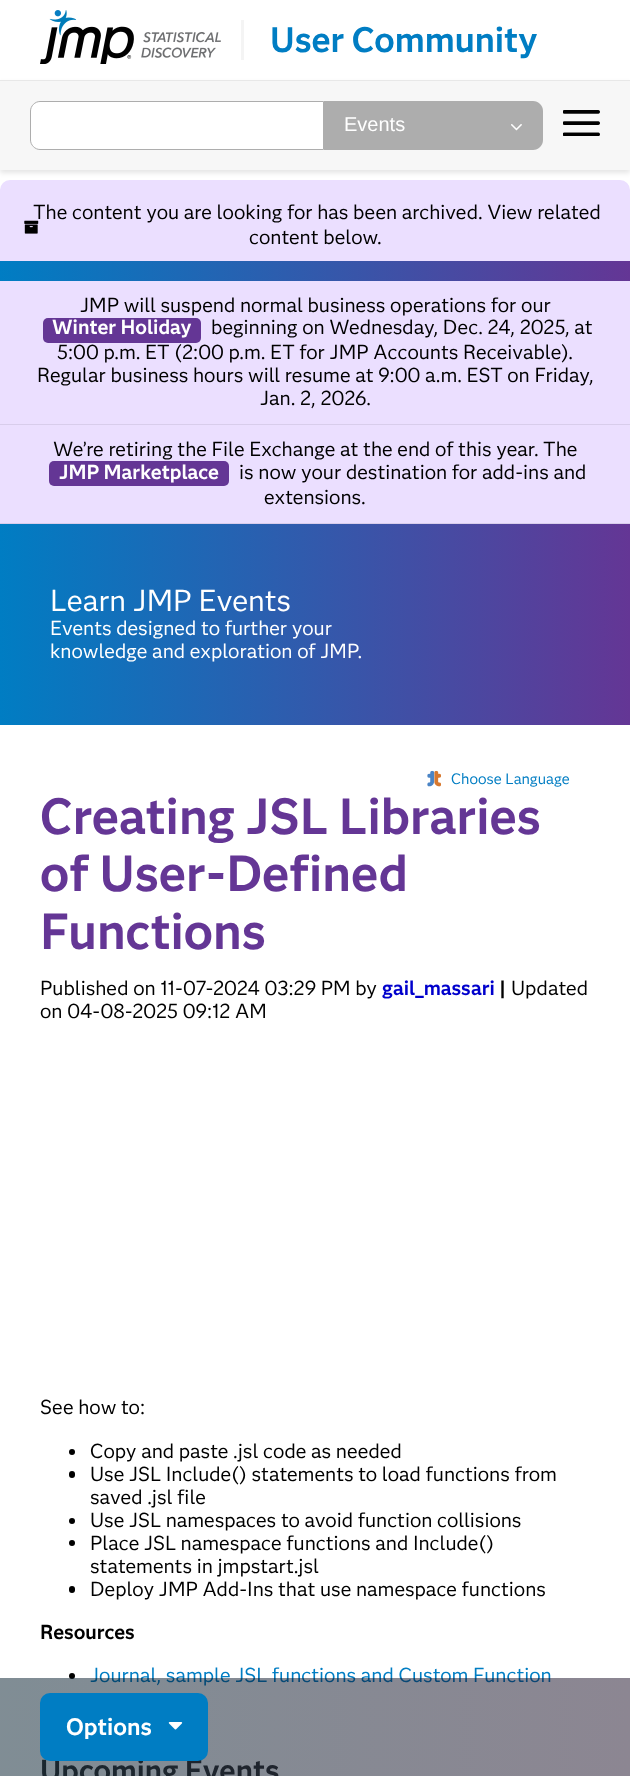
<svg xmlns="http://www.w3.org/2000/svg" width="630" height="1776">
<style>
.a{font:bold 35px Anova;fill:#007dc3}
.b{font:20px Liberation Sans;fill:#fff}
.c{font:20px Anova;fill:#000}
.d{font:bold 20px Anova;fill:#fff}
.e{font:30px Anova;fill:#fff}
.f{font:20px Anova;fill:#fff}
.g{font:15px Anova;fill:#007dc3}
.h{font:bold 50px Anova;fill:#643695}
.i{font:bold 20px Anova;fill:#00c}
.j{font:bold 20px Anova;fill:#000}
.k{font:20px Anova;fill:#007dc3}
.l{font:bold 30px Anova;fill:#333}
.m{font:bold 23.5px Anova;fill:#fff}
</style>
<defs>
<linearGradient id="g1" gradientUnits="userSpaceOnUse" x1="0" y1="493" x2="630" y2="493"><stop offset="0" stop-color="#007dc3"/><stop offset="1" stop-color="#643695"/></linearGradient>
<linearGradient id="g2" gradientUnits="userSpaceOnUse" x1="0" y1="1727" x2="630" y2="1727"><stop offset="0" stop-color="#001b2a" stop-opacity="0.5"/><stop offset="1" stop-color="#190d25" stop-opacity="0.5"/></linearGradient>
</defs>
<rect width="100%" height="100%" fill="#fff"/>
<image href="1.png" x="40" y="10" width="181" height="54"/>
<path fill="#f4f4f4" d="M241 20h3v40H241z"/>
<rect fill="#ebdfff" y="180" width="630" height="91" rx="10"/>
<path fill="#0000001a" filter="blur(2.5px)" d="M0 83h630v90H0z"/>
<path fill="#f7f7f7" d="M0 81h630v89H0z"/>
<path fill="#e8e8e8" d="M0 80h630v1H0z"/>
<path fill="#fff" stroke="#adadad" d="M40 101.5h283.5v48h-283.5c-5 0-9.5-4.5-9.5-9.5v-29c0-5 4.5-9.5 9.5-9.5z"/>
<path fill="#adadad" d="M324 101h209c5.5 0 10 4.5 10 10v29c0 5.5-4.5 10-10 10h-209z"/>
<image href="2.png" x="511" y="124" width="11" height="7"/>
<image href="3.png" x="563" y="110" width="37" height="26"/>
<path fill="url(#g1)" d="M0 261h630v464H0z"/>
<path fill="#ebdfff" d="M0 281h630v143H0z"/>
<path fill="#d8cdeb" d="M0 424h630v1H0z"/>
<rect fill="#643695" x="43" y="318" width="158" height="25" rx="5"/>
<path fill="#ebdfff" d="M0 425h630v98H0z"/>
<path fill="#d8cdeb" d="M0 523h630v1H0z"/>
<rect fill="#643695" x="49" y="461" width="180" height="25" rx="5"/>
<image href="5.png" x="427" y="770" width="14" height="17"/>
<circle fill="#000" cx="72" cy="1452" r="3"/>
<rect fill="#000" x="69" y="1471" width="6" height="7" rx="3"/>
<circle fill="#000" cx="72" cy="1521" r="3"/>
<circle fill="#000" cx="72" cy="1543" r="3"/>
<rect fill="#000" x="69" y="1586" width="6" height="7" rx="3"/>
<circle fill="#000" cx="72" cy="1676" r="3"/>
<text class="a" x="270" y="52">User Community</text>
<text class="b" x="344" y="131">Events</text>
<text class="c" x="33" y="219">The content you are looking for has been archived. View related</text>
<image href="4.png" x="24" y="220" width="15" height="14"/>
<text class="c" x="249" y="244">content below.</text>
<text class="c" x="80" y="312">JMP will suspend normal business operations for our</text>
<text class="d" x="52" y="334">Winter Holiday</text>
<text class="c" x="211" y="334">beginning on Wednesday, Dec. 24, 2025, at</text>
<text class="c" x="57" y="359">5:00 p.m. ET (2:00 p.m. ET for JMP Accounts Receivable).</text>
<text class="c" x="37" y="382">Regular business hours will resume at 9:00 a.m. EST on Friday,</text>
<text class="c" x="260" y="405">Jan. 2, 2026.</text>
<text class="c" x="53" y="456">We’re retiring the File Exchange at the end of this year. The</text>
<text class="d" x="59" y="479">JMP Marketplace</text>
<text class="c" x="239" y="479">is now your destination for add-ins and</text>
<text class="c" x="264" y="504">extensions.</text>
<text class="e" x="50" y="611">Learn JMP Events</text>
<text class="f" x="50" y="635">Events designed to further your</text>
<text class="f" x="50" y="658">knowledge and exploration of JMP.</text>
<text class="g" x="451" y="784">Choose Language</text>
<text class="h" x="40" y="834">Creating JSL Libraries</text>
<text class="h" x="40" y="891">of User-Defined</text>
<text class="h" x="40" y="949">Functions</text>
<text class="c" x="40" y="995">Published on 11-07-2024 03:29 PM by</text>
<text class="i" x="382" y="995">gail_massari</text>
<text class="j" x="499" y="995">|</text>
<text class="c" x="511" y="995">Updated</text>
<text class="c" x="40" y="1018">on 04-08-2025 09:12 AM</text>
<text class="c" x="40" y="1414">See how to:</text>
<text class="c" x="90" y="1458">Copy and paste .jsl code as needed</text>
<text class="c" x="90" y="1481">Use JSL Include() statements to load functions from</text>
<text class="c" x="90" y="1504">saved .jsl file</text>
<text class="c" x="90" y="1527">Use JSL namespaces to avoid function collisions</text>
<text class="c" x="90" y="1550">Place JSL namespace functions and Include()</text>
<text class="c" x="90" y="1573">statements in jmpstart.jsl</text>
<text class="c" x="90" y="1596">Deploy JMP Add-Ins that use namespace functions</text>
<text class="j" x="40" y="1639">Resources</text>
<text class="k" x="90" y="1682">Journal, sample JSL functions and Custom Function</text>
<text class="l" x="40" y="1781">Upcoming Events</text>
<path fill="url(#g2)" d="M0 1678h630v98H0z"/>
<rect fill="#007dc3" stroke="#007dc3" stroke-width="3" x="41.5" y="1694.5" width="165" height="65" rx="8.5"/>
<text class="m" x="66" y="1735">Options</text>
<image href="6.png" x="168" y="1722" width="15" height="8"/>
</svg>
